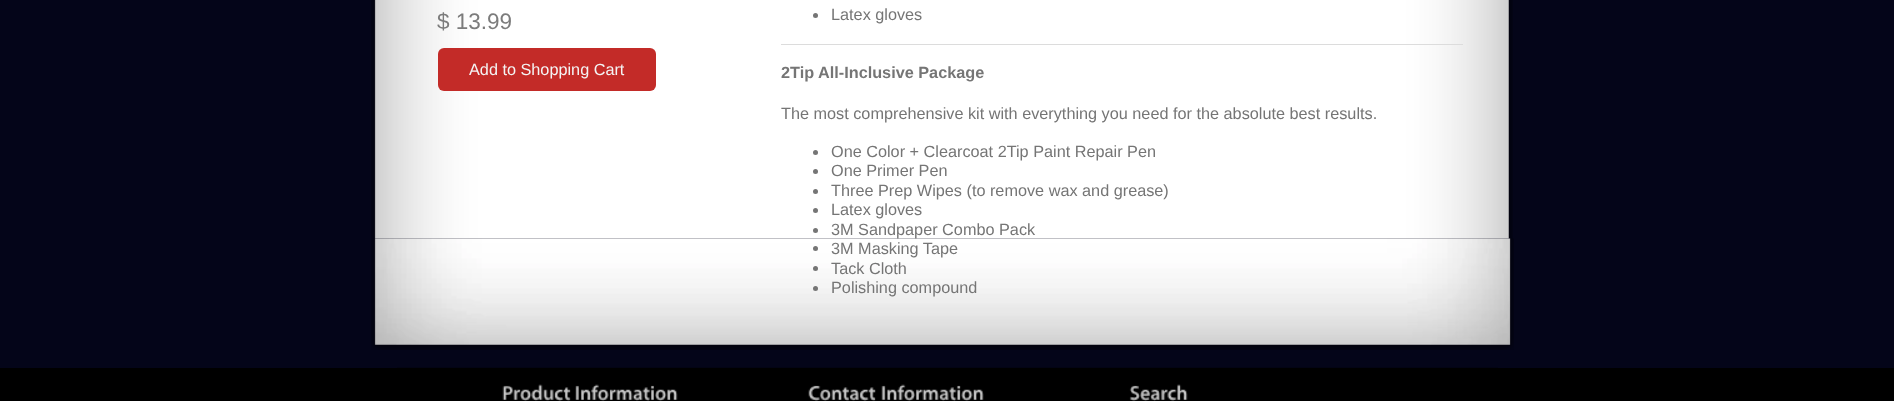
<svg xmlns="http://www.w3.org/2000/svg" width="1894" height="401">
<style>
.a{font:22.5px Liberation Sans;fill:#7c7c7c}
.b{font:16.25px Liberation Sans;fill:#f4f4f4}
.c{font:16.25px Liberation Sans;fill:#757575}
.d{font:bold 16.25px Liberation Sans;fill:#757575}
</style>
<rect width="100%" height="100%" fill="#040519"/>
<image href="1.png" x="371" y="0" width="1142" height="239"/>
<rect fill="#c32b28" x="438" y="48" width="218" height="43" rx="6"/>
<circle fill="#757575" cx="815.5" cy="15.5" r="2.5"/>
<path fill="#dcdcdc" d="M781 44h682v1H781z"/>
<circle fill="#757575" cx="815.5" cy="152.5" r="2.5"/>
<circle fill="#757575" cx="815.5" cy="171.5" r="2.5"/>
<circle fill="#757575" cx="815.5" cy="191.5" r="2.5"/>
<circle fill="#757575" cx="815.5" cy="210.5" r="2.5"/>
<circle fill="#757575" cx="815.5" cy="230.5" r="2.5"/>
<image href="2.png" x="371" y="238" width="1143" height="112"/>
<circle fill="#757575" cx="815.5" cy="248.5" r="2.5"/>
<circle fill="#757575" cx="815.5" cy="268.5" r="2.5"/>
<circle fill="#757575" cx="815.5" cy="288.5" r="2.5"/>
<path fill="#000" d="M0 368h1894v33H0z"/>
<path fill="#030414" d="M397 367h1101v1H397z"/>
<image href="3.png" x="502" y="384" width="69" height="17"/>
<image href="4.png" x="575" y="384" width="103" height="17"/>
<image href="5.png" x="808" y="385" width="68" height="16"/>
<image href="6.png" x="881" y="384" width="103" height="17"/>
<image href="7.png" x="1129" y="384" width="59" height="17"/>
<text class="a" x="437" y="29">$ 13.99</text>
<text class="b" x="469" y="75">Add to Shopping Cart</text>
<text class="c" x="831" y="20">Latex gloves</text>
<text class="d" x="781" y="78">2Tip All-Inclusive Package</text>
<text class="c" x="781" y="119">The most comprehensive kit with everything you need for the absolute best results.</text>
<text class="c" x="831" y="157">One Color + Clearcoat 2Tip Paint Repair Pen</text>
<text class="c" x="831" y="176">One Primer Pen</text>
<text class="c" x="831" y="196">Three Prep Wipes (to remove wax and grease)</text>
<text class="c" x="831" y="215">Latex gloves</text>
<text class="c" x="831" y="235">3M Sandpaper Combo Pack</text>
<text class="c" x="831" y="254">3M Masking Tape</text>
<text class="c" x="831" y="274">Tack Cloth</text>
<text class="c" x="831" y="293">Polishing compound</text>
</svg>
